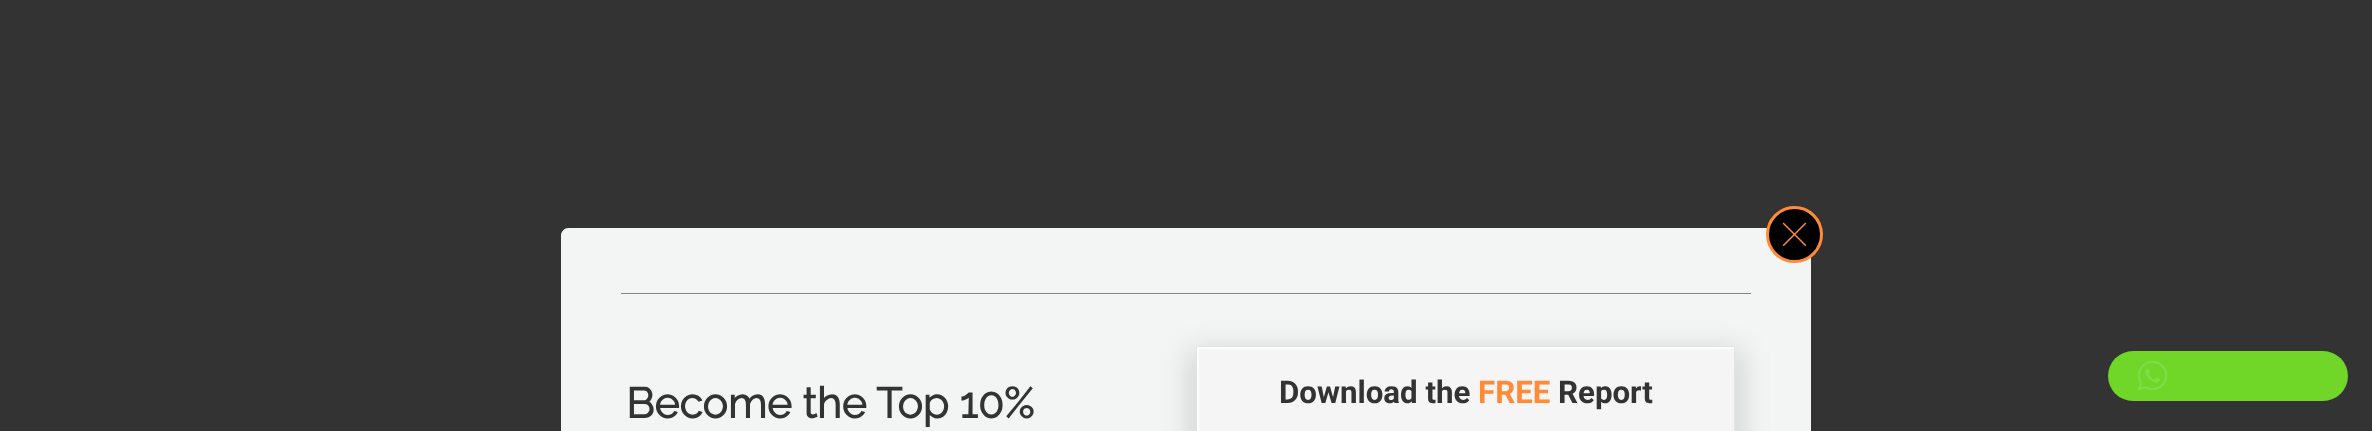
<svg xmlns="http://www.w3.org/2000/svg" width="2372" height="431">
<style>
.a{font:bold 42.5px Raleway;fill:#333}
.b{font:bold 31.25px Roboto;fill:#333}
.c{font:bold 31.25px Roboto;fill:#ff8b38}
</style>
<rect width="100%" height="100%" fill="#333"/>
<path fill="#f6f6f6" d="M569 228h1234c4.5 0 8 3.5 8 8v195h-1250v-195c0-4.5 3.5-8 8-8z"/>
<path fill="#f0f3f380" d="M569 228h1234c4.5 0 8 3.5 8 8v195h-1250v-195c0-4.5 3.5-8 8-8z"/>
<circle fill="#000" stroke="#ff8b38" stroke-width="3" cx="1794.5" cy="234.5" r="27"/>
<image href="1.png" x="1782" y="222" width="25" height="25"/>
<path fill="#86878b" d="M621 293h1130v1H621z"/>
<path fill="#00000024" filter="blur(14.5px)" d="M1190 350h551v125H1190z"/>
<path fill="#fff" stroke="#e4e4e4" d="M1196.5 346.5h538v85H1196.5z"/>
<path fill="#f5f5f5" d="M1199 349h535v82H1199z"/>
<rect fill="#70d628" x="2108" y="351" width="240" height="50" rx="25"/>
<image href="2.png" x="2137" y="360" width="31" height="31"/>
<text class="a" x="626" y="418">Become the Top 10%</text>
<text class="b" x="1279" y="403">Download the</text>
<text class="c" x="1478" y="403">FREE</text>
<text class="b" x="1558" y="403">Report</text>
</svg>
